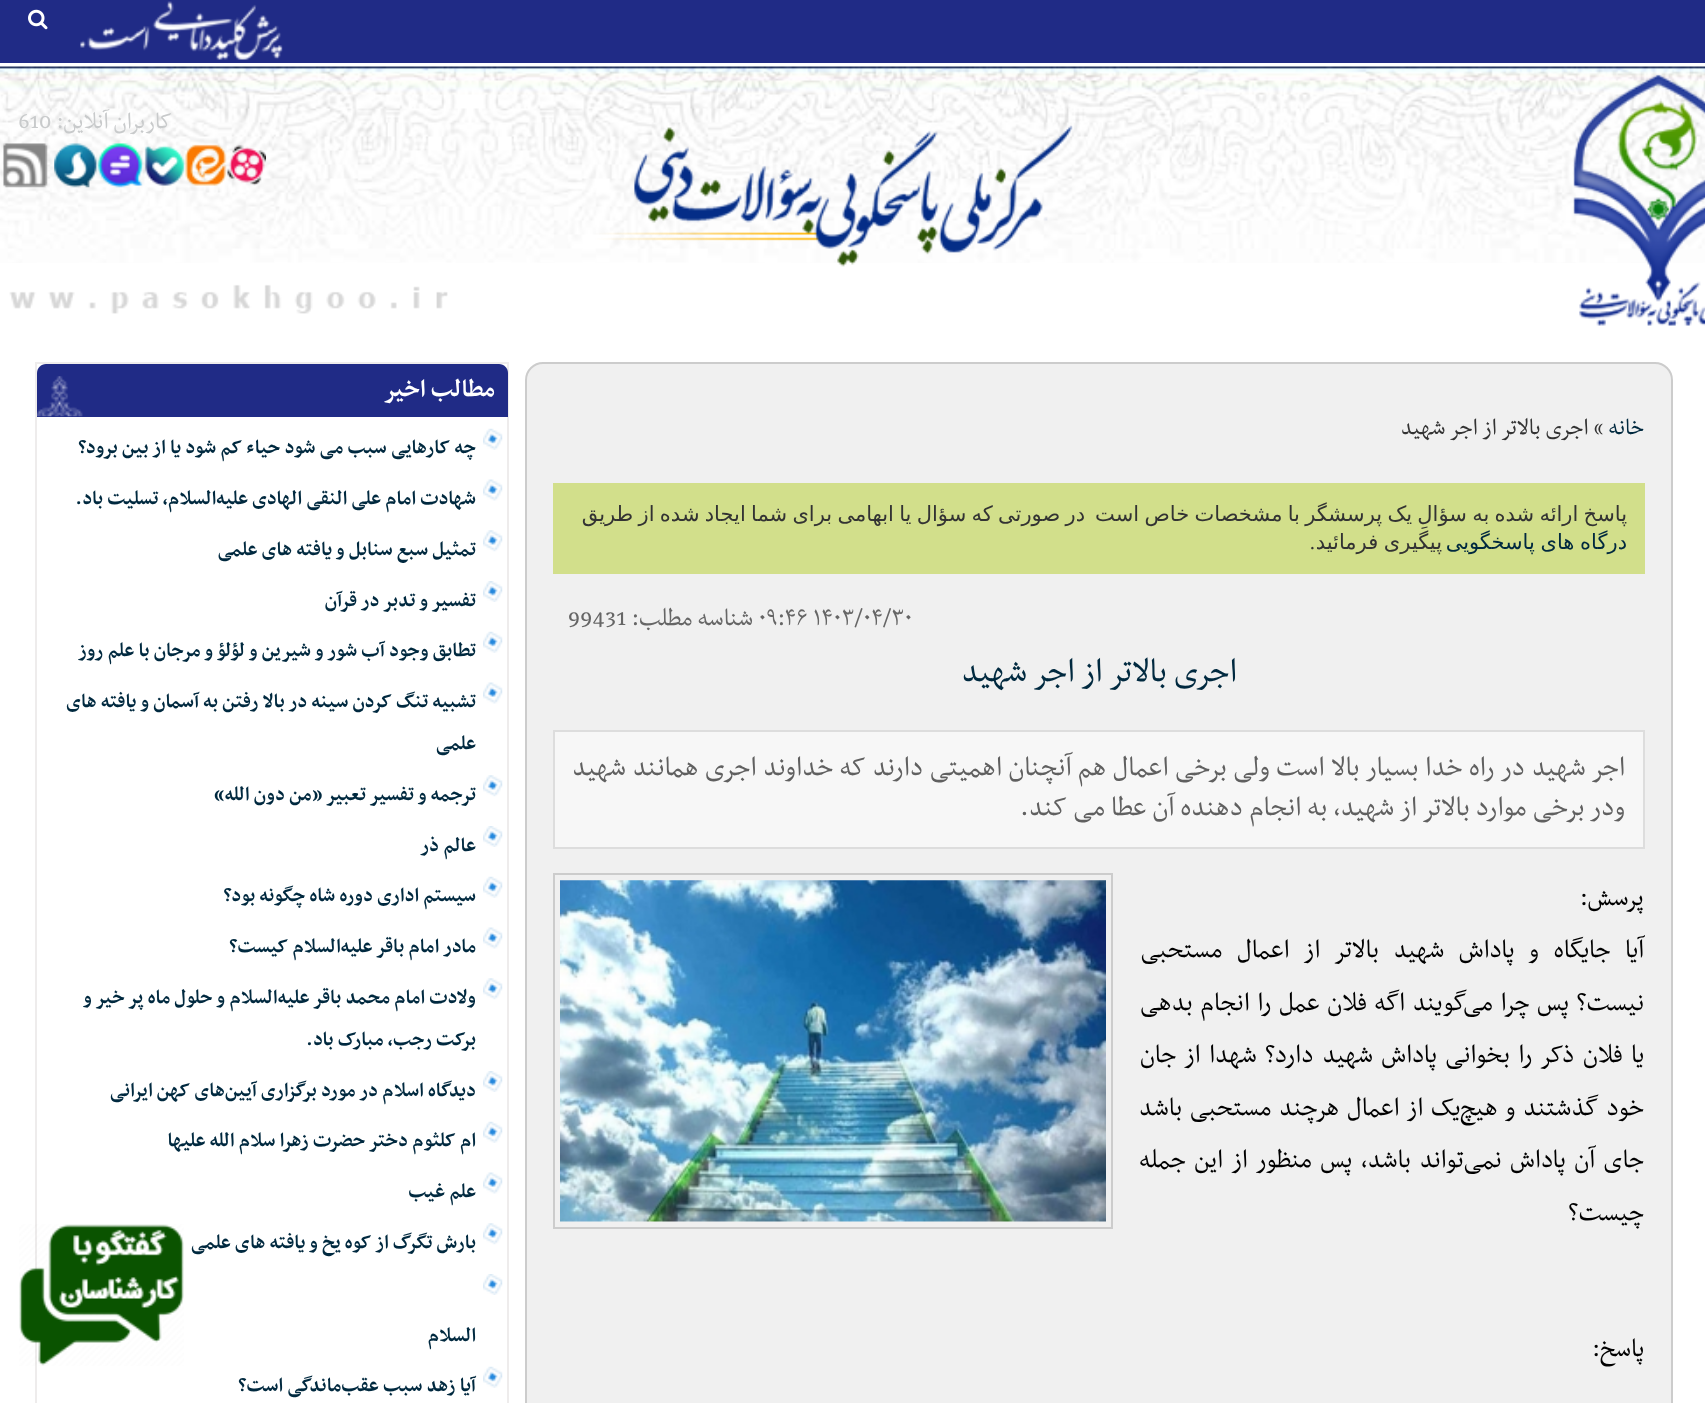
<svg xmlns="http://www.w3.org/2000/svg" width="1705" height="1403">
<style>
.a{font:26.25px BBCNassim;direction:rtl;fill:#c8cacb}
.b{font:26.25px BBCNassim;fill:#c8cacb}
.c{font:26.25px BBCNassim;direction:rtl;fill:#00293f}
.d{font:26.25px BBCNassim;direction:rtl;fill:#333}
.e{font:21px DejaVu Sans;direction:rtl;fill:#333}
.f{font:21px DejaVu Sans;direction:rtl;fill:#00293f}
.g{font:21px Liberation Serif;direction:rtl;fill:#333}
.h{font:28px BBCNassim;fill:#666}
.i{font:28px BBCNassim;direction:rtl;fill:#666}
.j{font:38.5px BBCNassim;direction:rtl;fill:#00293f}
.k{font:31.5px BBCNassim;direction:rtl;fill:#606060}
.l{font:29.75px BBCNassim;direction:rtl;fill:#000}
.m{font:bold 28px BBCNassim;direction:rtl;fill:#fff}
.n{font:bold 22.75px BBCNassim;direction:rtl;fill:#00293f}
</style>
<rect width="100%" height="100%" fill="#fff"/>
<path fill="#202b86" d="M0 0h1705v63H0z"/>
<image href="1.png" x="80" y="1" width="203" height="59"/>
<image href="2.png" x="28" y="9" width="20" height="21"/>
<image href="3.png" x="0" y="66" width="1705" height="197"/>
<image href="4.png" x="9" y="74" width="1696" height="252"/>
<image href="5.png" x="54" y="143" width="212" height="45"/>
<image href="6.png" x="3" y="143" width="45" height="45"/>
<rect fill="#f0f0f0" stroke="#ccc" stroke-width="2" x="526" y="363" width="1146" height="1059" rx="17"/>
<path fill="#d2df8b" d="M553 483h1092v91H553z"/>
<path fill="#f7f7f7" stroke="#ddd" stroke-width="2" d="M554 731h1090v117H554z"/>
<path fill="none" stroke="#ccc" stroke-width="2" d="M554 874h558v354H554z"/>
<image href="7.png" x="560" y="880" width="546" height="342"/>
<path fill="none" stroke="#eeecec" stroke-width="2" d="M36 363h472v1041H36z"/>
<path fill="#202b86" d="M46 364h453c5 0 9 4 9 9v44h-471v-44c0-5 4-9 9-9z"/>
<image href="8.png" x="37" y="376" width="46" height="41"/>
<image href="9.png" x="483" y="428" width="20" height="22"/>
<image href="10.png" x="483" y="479" width="20" height="22"/>
<image href="11.png" x="483" y="530" width="20" height="22"/>
<image href="12.png" x="483" y="581" width="20" height="21"/>
<image href="9.png" x="483" y="631" width="20" height="22"/>
<image href="10.png" x="483" y="682" width="20" height="22"/>
<image href="11.png" x="483" y="775" width="20" height="22"/>
<image href="12.png" x="483" y="826" width="20" height="21"/>
<image href="9.png" x="483" y="876" width="20" height="22"/>
<image href="10.png" x="483" y="927" width="20" height="22"/>
<image href="11.png" x="483" y="978" width="20" height="22"/>
<image href="12.png" x="483" y="1071" width="20" height="21"/>
<image href="9.png" x="483" y="1121" width="20" height="22"/>
<image href="10.png" x="483" y="1172" width="20" height="22"/>
<image href="11.png" x="483" y="1223" width="20" height="22"/>
<image href="12.png" x="483" y="1274" width="20" height="21"/>
<image href="9.png" x="483" y="1366" width="20" height="22"/>
<image href="13.png" x="19" y="1224" width="165" height="142"/>
<text class="a" x="172" y="128">کاربران آنلاین:</text>
<text class="b" x="18" y="128">610</text>
<text class="c" x="1644" y="434">خانه</text>
<text class="d" x="1604" y="434">» اجری بالاتر از اجر شهید</text>
<text class="e" x="1627" y="521" word-spacing="-1.4">پاسخ ارائه شده به سؤالِ یک پرسشگر با مشخصات خاص است</text>
<text class="e" x="1085" y="521" word-spacing="-1.4">در صورتی که سؤال یا ابهامی برای شما ایجاد شده از طریق</text>
<text class="f" x="1627" y="549" word-spacing="-1">درگاه های پاسخگویی</text>
<text class="e" x="1442" y="549" word-spacing="-1">پیگیری فرمائید</text>
<text class="g" x="1315" y="549">.</text>
<text class="h" x="758" y="625">۰۹:۴۶ ۱۴۰۳/۰۴/۳۰</text>
<text class="i" x="753" y="625">شناسه مطلب:</text>
<text class="h" x="568" y="625">99431</text>
<text class="j" x="1237" y="681">اجری بالاتر از اجر شهید</text>
<text class="k" x="1625" y="775" word-spacing="0.5">اجر شهید در راه خدا بسیار بالا است ولی برخی اعمال هم آنچنان اهمیتی دارند که خداوند اجری همانند شهید</text>
<text class="k" x="1625" y="815">ودر برخی موارد بالاتر از شهید، به انجام دهنده آن عطا می کند.</text>
<text class="l" x="1644" y="905">پرسش:</text>
<text class="l" x="1644" y="957" word-spacing="9">آیا جایگاه و پاداش شهید بالاتر از اعمال مستحبی</text>
<text class="l" x="1644" y="1010" word-spacing="2">نیست؟ پس چرا می‌گویند اگه فلان عمل را انجام بدهی</text>
<text class="l" x="1644" y="1062" word-spacing="2.75">یا فلان ذکر را بخوانی پاداش شهید دارد؟ شهدا از جان</text>
<text class="l" x="1644" y="1115" word-spacing="2">خود گذشتند و هیچ‌یک از اعمال هرچند مستحبی باشد</text>
<text class="l" x="1644" y="1167" word-spacing="3">جای آن پاداش نمی‌تواند باشد، پس منظور از این جمله</text>
<text class="l" x="1644" y="1220">چیست؟</text>
<text class="l" x="1644" y="1356">پاسخ:</text>
<text class="m" x="495" y="396">مطالب اخیر</text>
<text class="n" x="476" y="453">چه کارهایی سبب می شود حیاء کم شود یا از بین برود؟</text>
<text class="n" x="476" y="504">شهادت امام علی النقی الهادی علیه‌السلام، تسلیت باد.</text>
<text class="n" x="476" y="555">تمثیل سبع سنابل و یافته های علمی</text>
<text class="n" x="476" y="606">تفسیر و تدبر در قرآن</text>
<text class="n" x="476" y="656">تطابق وجود آب شور و شیرین و لؤلؤ و مرجان با علم روز</text>
<text class="n" x="476" y="707">تشبیه تنگ کردن سینه در بالا رفتن به آسمان و یافته های</text>
<text class="n" x="476" y="749">علمی</text>
<text class="n" x="476" y="800">ترجمه و تفسیر تعبیر «من دون الله»</text>
<text class="n" x="476" y="851">عالم ذر</text>
<text class="n" x="476" y="901">سیستم اداری دوره شاه چگونه بود؟</text>
<text class="n" x="476" y="952">مادر امام باقر علیه‌السلام کیست؟</text>
<text class="n" x="476" y="1003">ولادت امام محمد باقر علیه‌السلام و حلول ماه پر خیر و</text>
<text class="n" x="476" y="1045">برکت رجب، مبارک باد.</text>
<text class="n" x="476" y="1096">دیدگاه اسلام در مورد برگزاری آیین‌های کهن ایرانی</text>
<text class="n" x="476" y="1146">ام کلثوم دختر حضرت زهرا سلام الله علیها</text>
<text class="n" x="476" y="1197">علم غیب</text>
<text class="n" x="476" y="1248">بارش تگرگ از کوه یخ و یافته های علمی</text>
<text class="n" x="476" y="1341">السلام</text>
<text class="n" x="476" y="1391">آیا زهد سبب عقب‌ماندگی است؟</text>
</svg>
